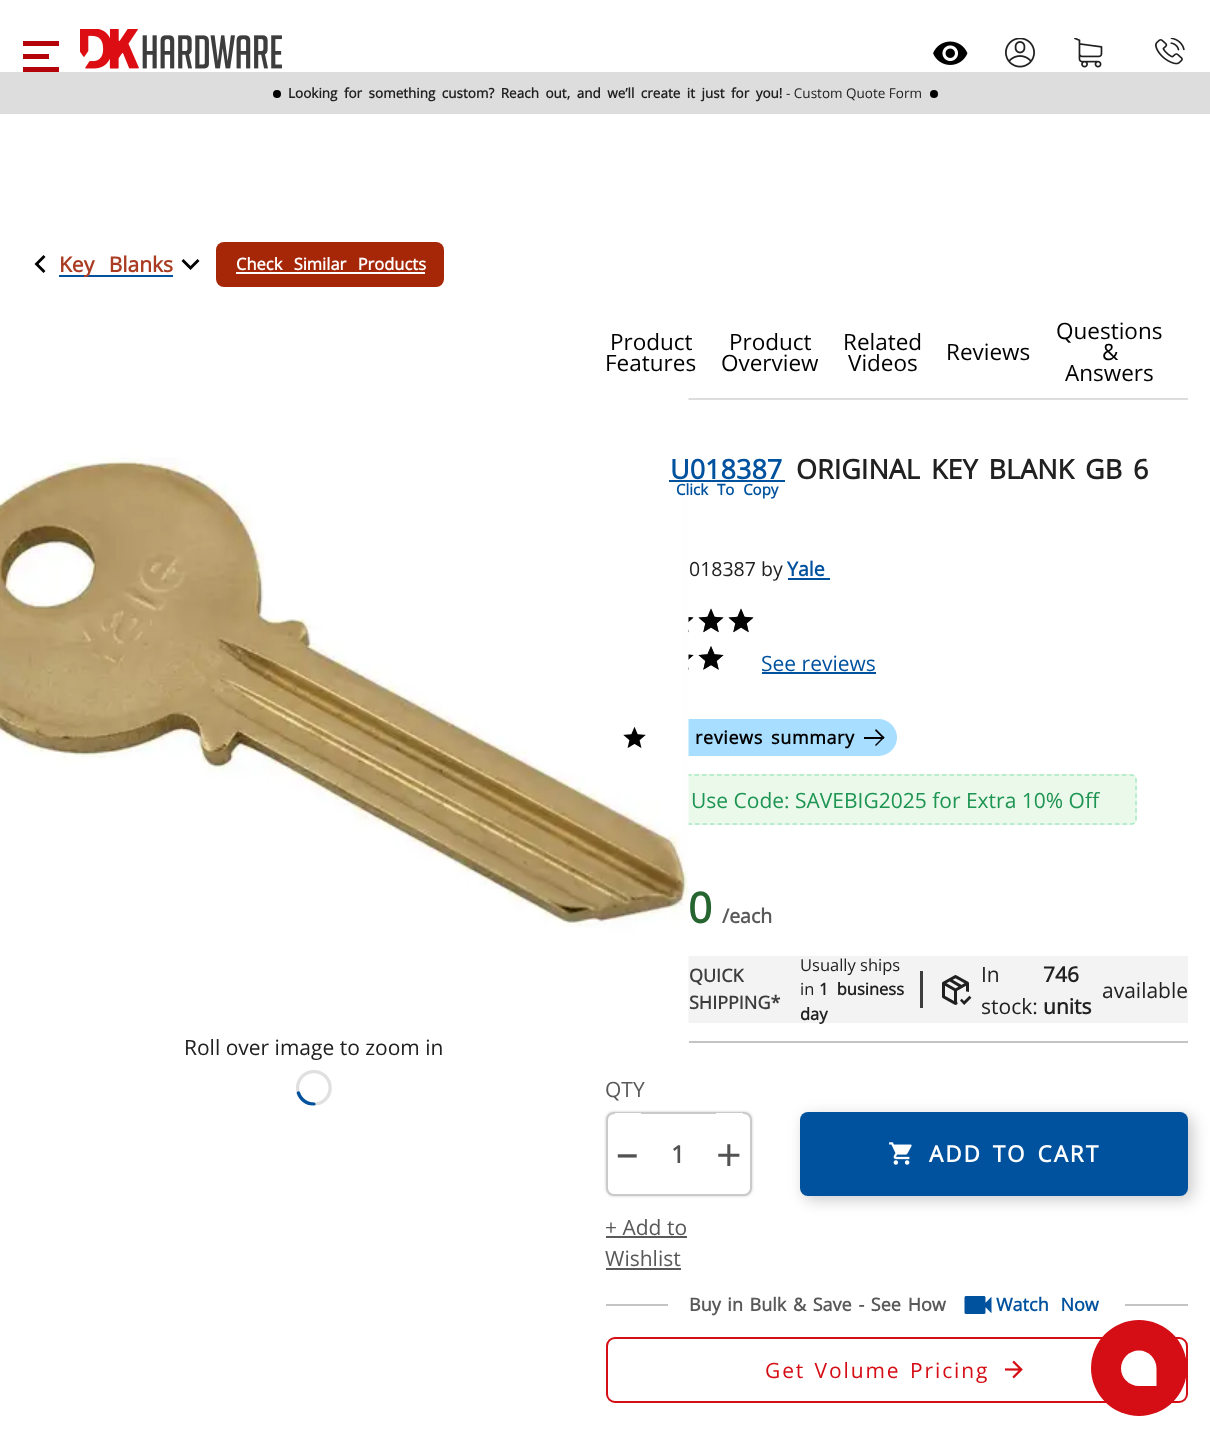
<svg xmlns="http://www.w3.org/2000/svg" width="1210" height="1439">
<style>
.a{font:bold 13.5px Open Sans;fill:#212121}
.b{font:13.5px Open Sans;fill:#212121}
.c{font:bold 21px Open Sans;fill:#aa3c23}
.d{font:bold 16.5px Open Sans;fill:#fff}
.e{font:21px Open Sans;fill:#212121}
.f{font:22.5px Open Sans;fill:#000}
.g{font:bold 27px Open Sans;fill:#00529e}
.h{font:bold 15px Open Sans;fill:#00529e}
.i{font:bold 27px Open Sans;fill:#212121}
.j{font:19.5px Open Sans;fill:#212121}
.k{font:bold 19.5px Open Sans;fill:#00529e}
.l{font:21px Open Sans;fill:#00529e}
.m{font:bold 18px Open Sans;letter-spacing:0.6px;fill:#000}
.n{font:21px Open Sans;fill:#1e9553}
.o{font:bold 42px Open Sans;fill:#266430}
.p{font:bold 19.5px Open Sans;fill:#595959}
.q{font:bold 18px Open Sans;fill:#3d3d3d}
.r{font:16.5px Open Sans;fill:#212121}
.s{font:bold 16.5px Open Sans;fill:#212121}
.t{font:bold 21px Open Sans;fill:#212121}
.u{font:21px Open Sans;fill:#595959}
.v{font:45px Open Sans;fill:#525252}
.w{font:bold 24px Open Sans;fill:#525252}
.x{font:bold 22.5px Open Sans;letter-spacing:2px;fill:#fff}
.y{font:bold 18px Open Sans;fill:#595959}
.z{font:bold 18px Open Sans;fill:#00529e}
.a1{font:21px Open Sans;letter-spacing:1.9px;fill:#d50d15}
</style>
<rect width="100%" height="100%" fill="#fff"/>
<path fill="#b4040a" d="M23 41h36v5H23z"/>
<path fill="#b4040a" d="M23 54h26v5H23z"/>
<path fill="#b4040a" d="M23 67h36v5H23z"/>
<image href="1.png" x="80" y="29" width="202" height="40"/>
<image href="2.png" x="933" y="41" width="35" height="24"/>
<image href="3.png" x="1005" y="38" width="30" height="30"/>
<image href="4.png" x="1074" y="38" width="29" height="30"/>
<image href="5.png" x="1155" y="38" width="30" height="27"/>
<path fill="#ddd" d="M0 72h1210v42H0z"/>
<circle fill="#000" cx="277" cy="94" r="4"/>
<circle fill="#000" cx="934" cy="94" r="4"/>
<path fill="#000" fill-rule="evenodd" d="M45.5 271l-7-7l7-7l-2-2l-9 9l9 9z"/>
<path fill="#00529e" d="M59 275h114v2H59z"/>
<path fill="#000" fill-rule="evenodd" d="M183.5 259l7 7l7-7l2 2l-9 9l-9-9z"/>
<rect fill="#a62708" x="216" y="242" width="228" height="45" rx="8"/>
<path fill="#fff" d="M236 272h189v2H236z"/>
<path fill="#ddd" d="M688 398h500v2H688z"/>
<image href="8.png" x="688" y="617" width="6" height="16"/>
<image href="10.png" x="688" y="654" width="6" height="16"/>
<rect fill="#a8deff" x="606" y="719" width="291" height="37" rx="18.5"/>
<rect fill="#ebf9eb" x="606" y="774" width="531" height="51" rx="6"/>
<path fill="none" stroke="#a9e9c5" stroke-width="1.5" stroke-dasharray="4.5 3" d="M612 775h519c3 0 5 2 5 5v39c0 3-2 5-5 5h-519c-3 0-5-2-5-5v-39c0-3 2-5 5-5z"/>
<path fill="#f3f3f3" d="M688 956h500v67H688z"/>
<path fill="#c4c4c4" d="M688 1041h500v2H688z"/>
<image href="6.png" x="0" y="398" width="689" height="645"/>
<path fill="#ffffffcc" d="M688 1041h1v2H688z"/>
<image href="7.png" x="296" y="1070" width="36" height="36"/>
<path fill="#00529e" d="M669 480h116v2H669z"/>
<path fill="#00529e" d="M788 578h42v2H788z"/>
<image href="9.png" x="698" y="608" width="26" height="25"/>
<image href="9.png" x="728" y="608" width="26" height="25"/>
<image href="11.png" x="698" y="646" width="26" height="24"/>
<path fill="#00529e" d="M762 672h114v2H762z"/>
<image href="12.png" x="623" y="726" width="23" height="22"/>
<path fill="#000" d="M884.5 737.5l-8.5 8.5l-1-1l8.5-8.5z"/>
<path fill="#000" d="M884.5 737.5l-1 1.5l-8.5-8.5l1-1.5z"/>
<path fill="#000" d="M864 737h18v2H864z"/>
<path fill="#3d3d3d" d="M920 971h3v37H920z"/>
<image href="13.png" x="942" y="975" width="30" height="30"/>
<rect fill="#cacaca" filter="blur(1.5px)" x="606" y="1112" width="146" height="84" rx="8"/>
<rect fill="#fff" stroke="#cacaca" stroke-width="2" x="607" y="1113" width="144" height="82" rx="7"/>
<path fill="#fff" d="M615 1113h26v1H615z"/>
<path fill="#fff" d="M716 1113h27v1H716z"/>
<rect fill="#00000033" filter="blur(7.5px)" x="804" y="1116" width="389" height="84" rx="8"/>
<rect fill="#00529e" x="800" y="1112" width="388" height="84" rx="8"/>
<image href="14.png" x="889" y="1142" width="23" height="23"/>
<path fill="#595959" d="M606 1236h81v2H606z"/>
<path fill="#595959" d="M606 1268h75v2H606z"/>
<path fill="#c4c4c4" d="M606 1304h582v2H606z"/>
<path fill="#fff" d="M668 1304h457v2H668z"/>
<image href="15.png" x="964" y="1296" width="28" height="18"/>
<rect fill="none" stroke="#d50d15" stroke-width="2" x="607" y="1338" width="580" height="64" rx="8"/>
<image href="16.png" x="1005" y="1360" width="18" height="19"/>
<circle fill="#d50d15" cx="1139" cy="1368" r="48"/>
<path fill="#fff" d="M1156.5 1386h-17.5c-10 0-18-8-18-17.5c0-10 8-18 18-18c9.5 0 17.5 8 17.5 18z"/>
<text class="a" x="288" y="98" word-spacing="3">Looking for something custom? Reach out, and we’ll create it just for you!</text>
<text class="b" x="786" y="98">- Custom Quote Form</text>
<text class="c" x="59" y="272" word-spacing="9">Key Blanks</text>
<text class="d" x="236" y="270" word-spacing="7">Check Similar Products</text>
<text class="e" x="184" y="1055">Roll over image to zoom in</text>
<text class="f" x="610" y="350">Product</text>
<text class="f" x="605" y="371">Features</text>
<text class="f" x="729" y="350">Product</text>
<text class="f" x="721" y="371">Overview</text>
<text class="f" x="843" y="350">Related</text>
<text class="f" x="848" y="371">Videos</text>
<text class="f" x="946" y="360">Reviews</text>
<text class="f" x="1056" y="339">Questions</text>
<text class="f" x="1102" y="360">&amp;</text>
<text class="f" x="1065" y="381">Answers</text>
<text class="g" x="670" y="479">U018387</text>
<text class="h" x="676" y="495" word-spacing="5">Click To Copy</text>
<text class="i" x="796" y="479" word-spacing="4">ORIGINAL KEY BLANK GB 6</text>
<text class="j" x="689" y="576">018387 by</text>
<text class="k" x="787" y="576">Yale</text>
<text class="l" x="761" y="671">See reviews</text>
<text class="m" x="695" y="744" word-spacing="3">reviews summary</text>
<text class="n" x="691" y="808">Use Code: SAVEBIG2025 for Extra 10% Off</text>
<text class="o" x="688" y="923">0</text>
<text class="p" x="722" y="923">/each</text>
<text class="q" x="689" y="982">QUICK</text>
<text class="q" x="689" y="1009">SHIPPING*</text>
<text class="r" x="800" y="971">Usually ships</text>
<text class="r" x="800" y="995">in</text>
<text class="s" x="819" y="995" word-spacing="4">1 business</text>
<text class="s" x="800" y="1020">day</text>
<text class="e" x="981" y="982">In</text>
<text class="t" x="1043" y="982">746</text>
<text class="t" x="1043" y="1014">units</text>
<text class="e" x="1102" y="998">available</text>
<text class="e" x="981" y="1014">stock:</text>
<text class="u" x="605" y="1097">QTY</text>
<text class="v" x="616" y="1168">–</text>
<text class="w" x="671" y="1163">1</text>
<text class="v" x="716" y="1171">+</text>
<text class="x" x="929" y="1162" word-spacing="3">ADD TO CART</text>
<text class="u" x="605" y="1235">+ Add to</text>
<text class="u" x="605" y="1266">Wishlist</text>
<text class="y" x="689" y="1311" word-spacing="2">Buy in Bulk &amp; Save - See How</text>
<text class="z" x="996" y="1311" word-spacing="7">Watch Now</text>
<text class="a1" x="765" y="1378" word-spacing="2">Get Volume Pricing</text>
</svg>
